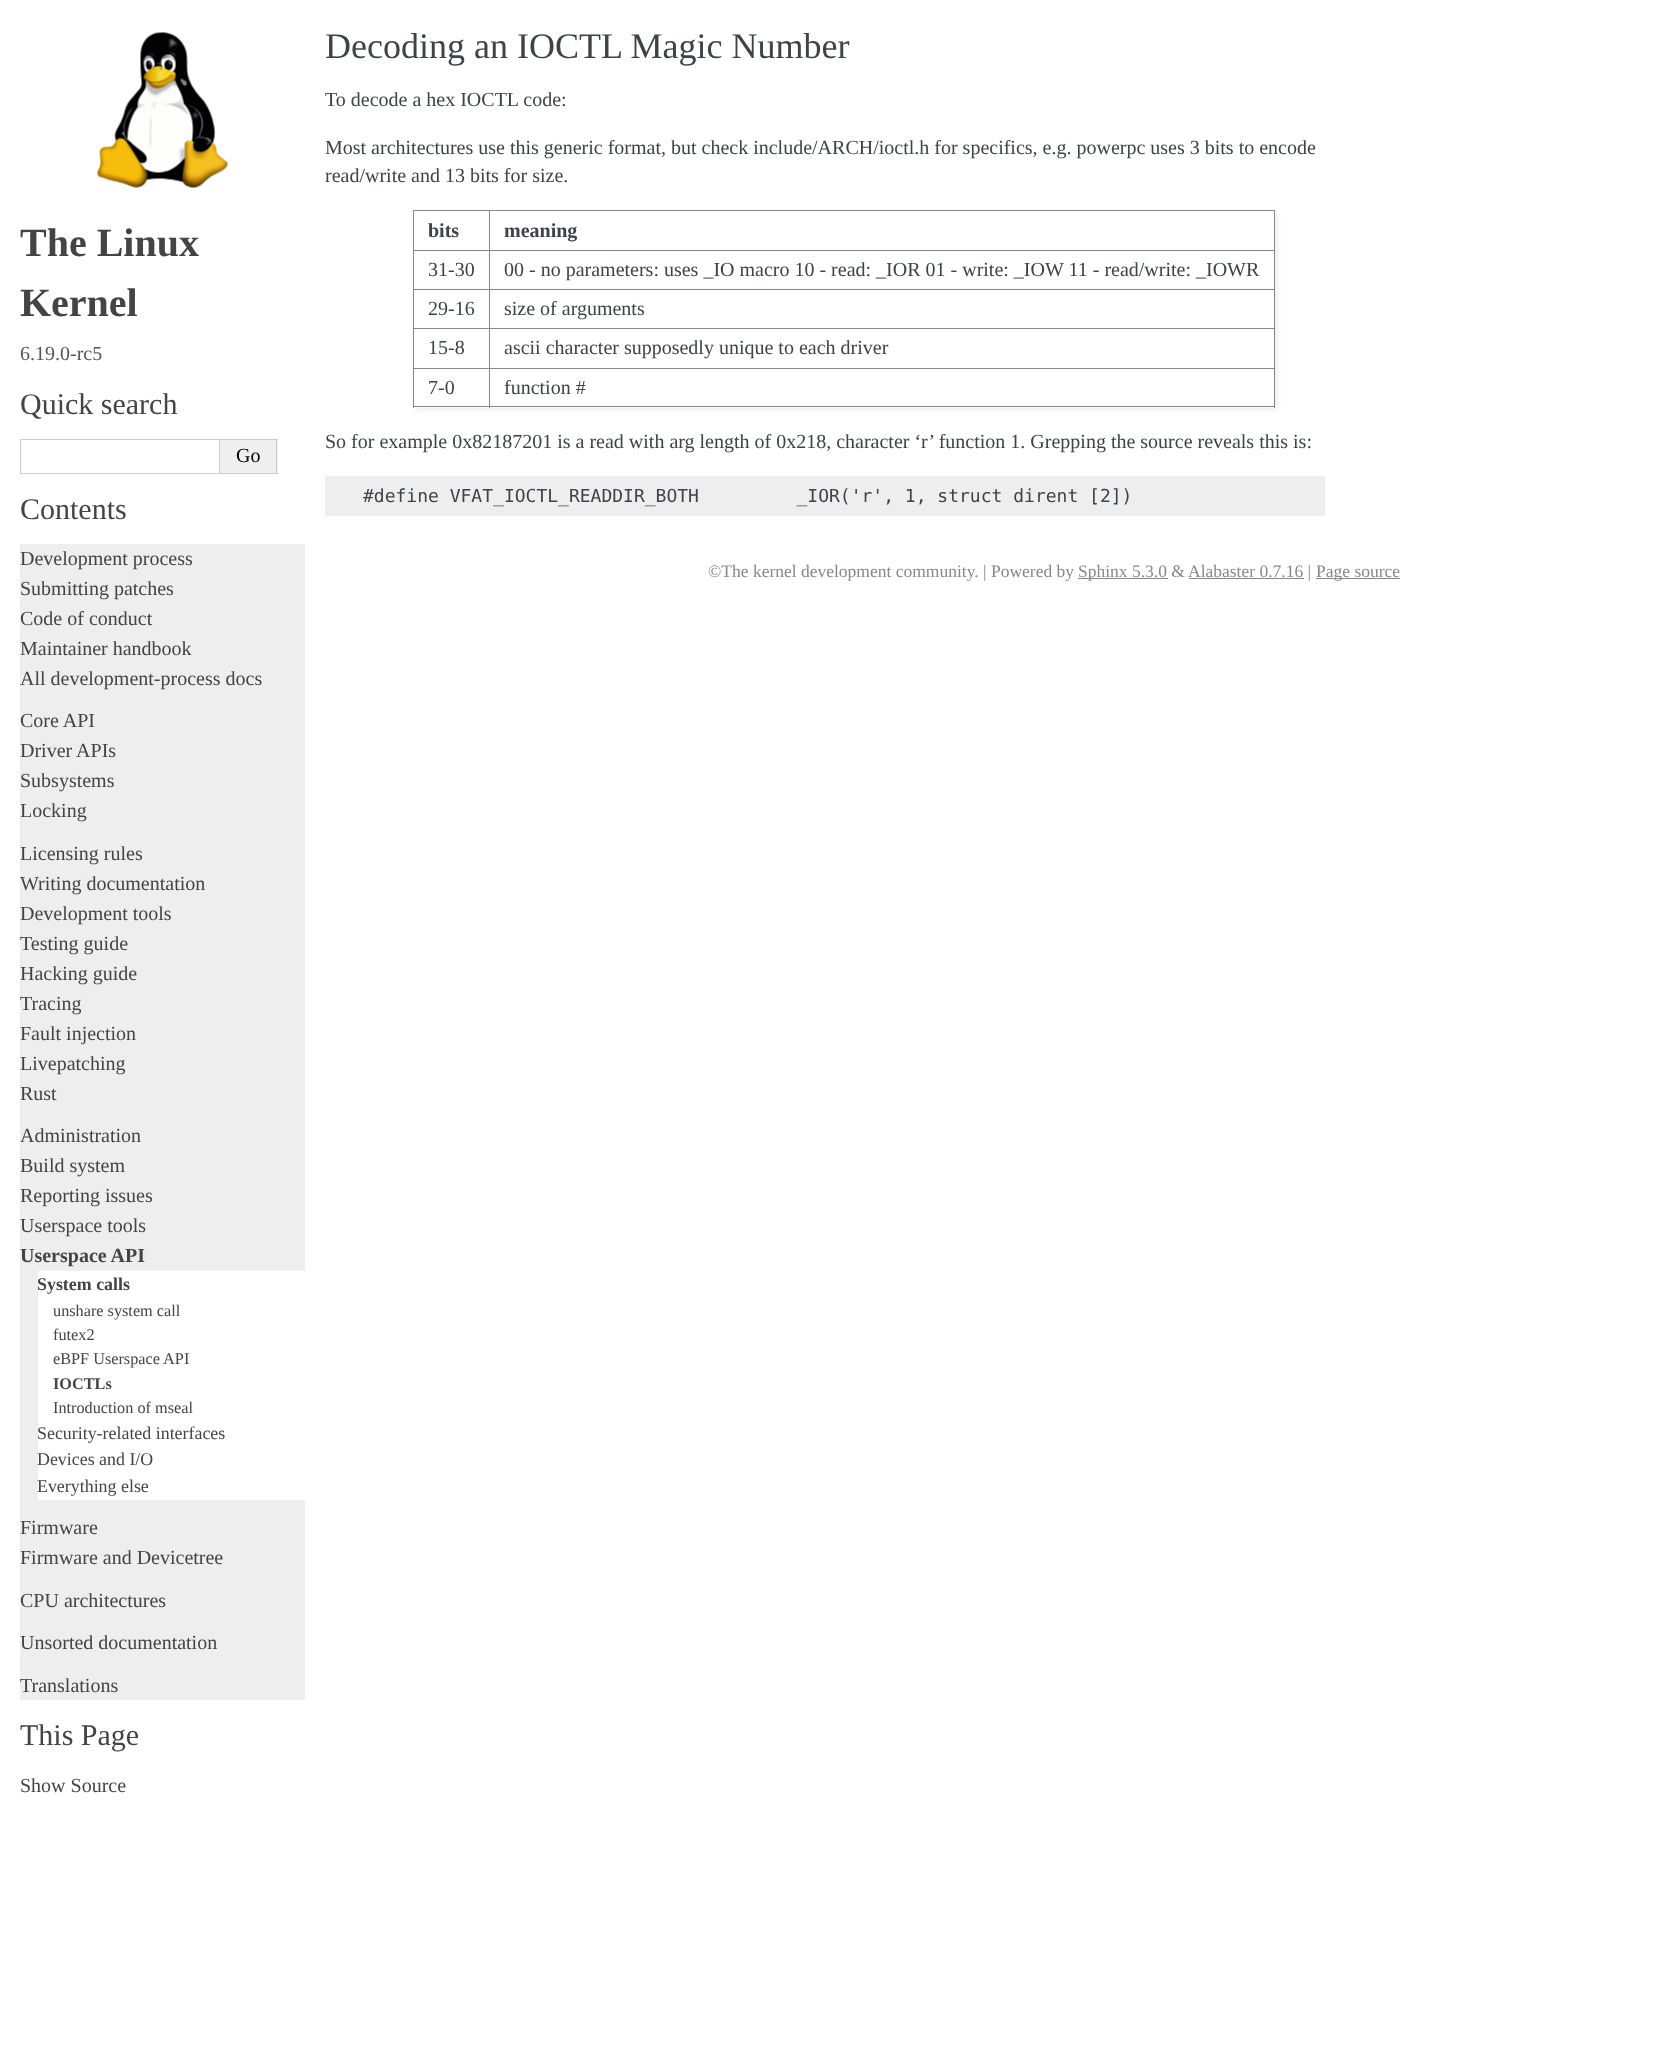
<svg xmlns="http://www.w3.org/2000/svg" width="1662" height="2045">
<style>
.a{font:bold 40px Liberation Serif;fill:#444}
.b{font:20px Liberation Serif;fill:#555}
.c{font:30px Liberation Serif;fill:#444}
.d{font:20px Liberation Serif;fill:#000}
.e{font:20px Liberation Serif;fill:#444}
.f{font:bold 20px Liberation Serif;fill:#444}
.g{font:bold 17.9px Liberation Serif;fill:#444}
.h{font:16.25px Liberation Serif;fill:#444}
.i{font:bold 16.25px Liberation Serif;fill:#444}
.j{font:17.9px Liberation Serif;fill:#444}
.k{font:36px Liberation Serif;fill:#3e4349}
.l{font:20px Liberation Serif;fill:#3e4349}
.m{font:bold 20px Liberation Serif;fill:#3e4349}
.n{font:18px DejaVu Sans Mono;fill:#3e4349}
.o{font:17.5px Liberation Serif;fill:#888}
</style>
<defs>
<clipPath id="clip1"><path d="M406 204h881v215h-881zm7 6h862v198h-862z" clip-rule="evenodd"/></clipPath>
</defs>
<rect width="100%" height="100%" fill="#fff"/>
<image href="1.png" x="97" y="32" width="131" height="156"/>
<path fill="none" stroke="#ccc" d="M20.5 439.5h199v34H20.5z"/>
<path fill="#efefef" d="M220 440h58v33H220z"/>
<path fill="#ccc" d="M220 439h58v1H220z"/>
<path fill="#ccc" d="M276 439h1v35H276z"/>
<path fill="#ccc" d="M220 473h58v1H220z"/>
<path fill="#eee" d="M20 544h285v1156H20z"/>
<path fill="#fff" d="M38 1271h267v229H38z"/>
<g clip-path="url(#clip1)">
<path fill="#eee" filter="blur(2.5px)" d="M415 213h863v197H415z"/>
</g>
<path fill="#888" d="M413 210h862v1H413z"/>
<path fill="#888" d="M1274 210h1v198H1274z"/>
<path fill="#888" d="M413 406h862v1H413z"/>
<path fill="#888" d="M413 210h1v198H413z"/>
<path fill="#888" d="M489 250h786v1H489z"/>
<path fill="#888" d="M489 289h786v1H489z"/>
<path fill="#888" d="M489 328h786v1H489z"/>
<path fill="#888" d="M489 368h786v1H489z"/>
<path fill="#888" d="M489 368h1v40H489z"/>
<path fill="#888" d="M413 368h77v1H413z"/>
<path fill="#888" d="M489 328h1v41H489z"/>
<path fill="#888" d="M413 328h77v1H413z"/>
<path fill="#888" d="M489 289h1v40H489z"/>
<path fill="#888" d="M413 289h77v1H413z"/>
<path fill="#888" d="M489 250h1v40H489z"/>
<path fill="#888" d="M413 250h77v1H413z"/>
<path fill="#888" d="M489 210h1v41H489z"/>
<path fill="#eee" d="M325 476h1000v40H325z"/>
<path fill="#888" d="M1078 578h90v1H1078z"/>
<path fill="#888" d="M1189 578h115v1H1189z"/>
<path fill="#888" d="M1316 578h84v1H1316z"/>
<text class="a" x="20" y="256">The Linux</text>
<text class="a" x="20" y="316">Kernel</text>
<text class="b" x="20" y="360">6.19.0-rc5</text>
<text class="c" x="20" y="414">Quick search</text>
<text class="d" x="236" y="462">Go</text>
<text class="c" x="20" y="519">Contents</text>
<text class="e" x="20" y="565">Development process</text>
<text class="e" x="20" y="595">Submitting patches</text>
<text class="e" x="20" y="625">Code of conduct</text>
<text class="e" x="20" y="655">Maintainer handbook</text>
<text class="e" x="20" y="685">All development-process docs</text>
<text class="e" x="20" y="727">Core API</text>
<text class="e" x="20" y="757">Driver APIs</text>
<text class="e" x="20" y="787">Subsystems</text>
<text class="e" x="20" y="817">Locking</text>
<text class="e" x="20" y="860">Licensing rules</text>
<text class="e" x="20" y="890">Writing documentation</text>
<text class="e" x="20" y="920">Development tools</text>
<text class="e" x="20" y="950">Testing guide</text>
<text class="e" x="20" y="980">Hacking guide</text>
<text class="e" x="20" y="1010">Tracing</text>
<text class="e" x="20" y="1040">Fault injection</text>
<text class="e" x="20" y="1070">Livepatching</text>
<text class="e" x="20" y="1100">Rust</text>
<text class="e" x="20" y="1142">Administration</text>
<text class="e" x="20" y="1172">Build system</text>
<text class="e" x="20" y="1202">Reporting issues</text>
<text class="e" x="20" y="1232">Userspace tools</text>
<text class="f" x="20" y="1262">Userspace API</text>
<text class="g" x="37" y="1290">System calls</text>
<text class="h" x="53" y="1316">unshare system call</text>
<text class="h" x="53" y="1340">futex2</text>
<text class="h" x="53" y="1364">eBPF Userspace API</text>
<text class="i" x="53" y="1389">IOCTLs</text>
<text class="h" x="53" y="1413">Introduction of mseal</text>
<text class="j" x="37" y="1439">Security-related interfaces</text>
<text class="j" x="37" y="1465">Devices and I/O</text>
<text class="j" x="37" y="1492">Everything else</text>
<text class="e" x="20" y="1534">Firmware</text>
<text class="e" x="20" y="1564">Firmware and Devicetree</text>
<text class="e" x="20" y="1607">CPU architectures</text>
<text class="e" x="20" y="1649">Unsorted documentation</text>
<text class="e" x="20" y="1692">Translations</text>
<text class="c" x="20" y="1745">This Page</text>
<text class="e" x="20" y="1792">Show Source</text>
<text class="k" x="325" y="58">Decoding an IOCTL Magic Number</text>
<text class="l" x="325" y="106">To decode a hex IOCTL code:</text>
<text class="l" x="325" y="154">Most architectures use this generic format, but check include/ARCH/ioctl.h for specifics, e.g. powerpc uses 3 bits to encode</text>
<text class="l" x="325" y="182">read/write and 13 bits for size.</text>
<text class="m" x="428" y="237">bits</text>
<text class="m" x="504" y="237">meaning</text>
<text class="l" x="428" y="276">31-30</text>
<text class="l" x="504" y="276">00 - no parameters: uses _IO macro 10 - read: _IOR 01 - write: _IOW 11 - read/write: _IOWR</text>
<text class="l" x="428" y="315">29-16</text>
<text class="l" x="504" y="315">size of arguments</text>
<text class="l" x="428" y="354">15-8</text>
<text class="l" x="504" y="354">ascii character supposedly unique to each driver</text>
<text class="l" x="428" y="394">7-0</text>
<text class="l" x="504" y="394">function #</text>
<text class="l" x="325" y="448">So for example 0x82187201 is a read with arg length of 0x218, character ‘r’ function 1. Grepping the source reveals this is:</text>
<text class="n" xml:space="preserve" x="363" y="502">#define VFAT_IOCTL_READDIR_BOTH         _IOR('r', 1, struct dirent [2])</text>
<text class="o" x="708" y="577">©The kernel development community. | Powered by</text>
<text class="o" x="1078" y="577">Sphinx 5.3.0 &amp;</text>
<text class="o" x="1188" y="577">Alabaster 0.7.16 |</text>
<text class="o" x="1316" y="577">Page source</text>
</svg>
